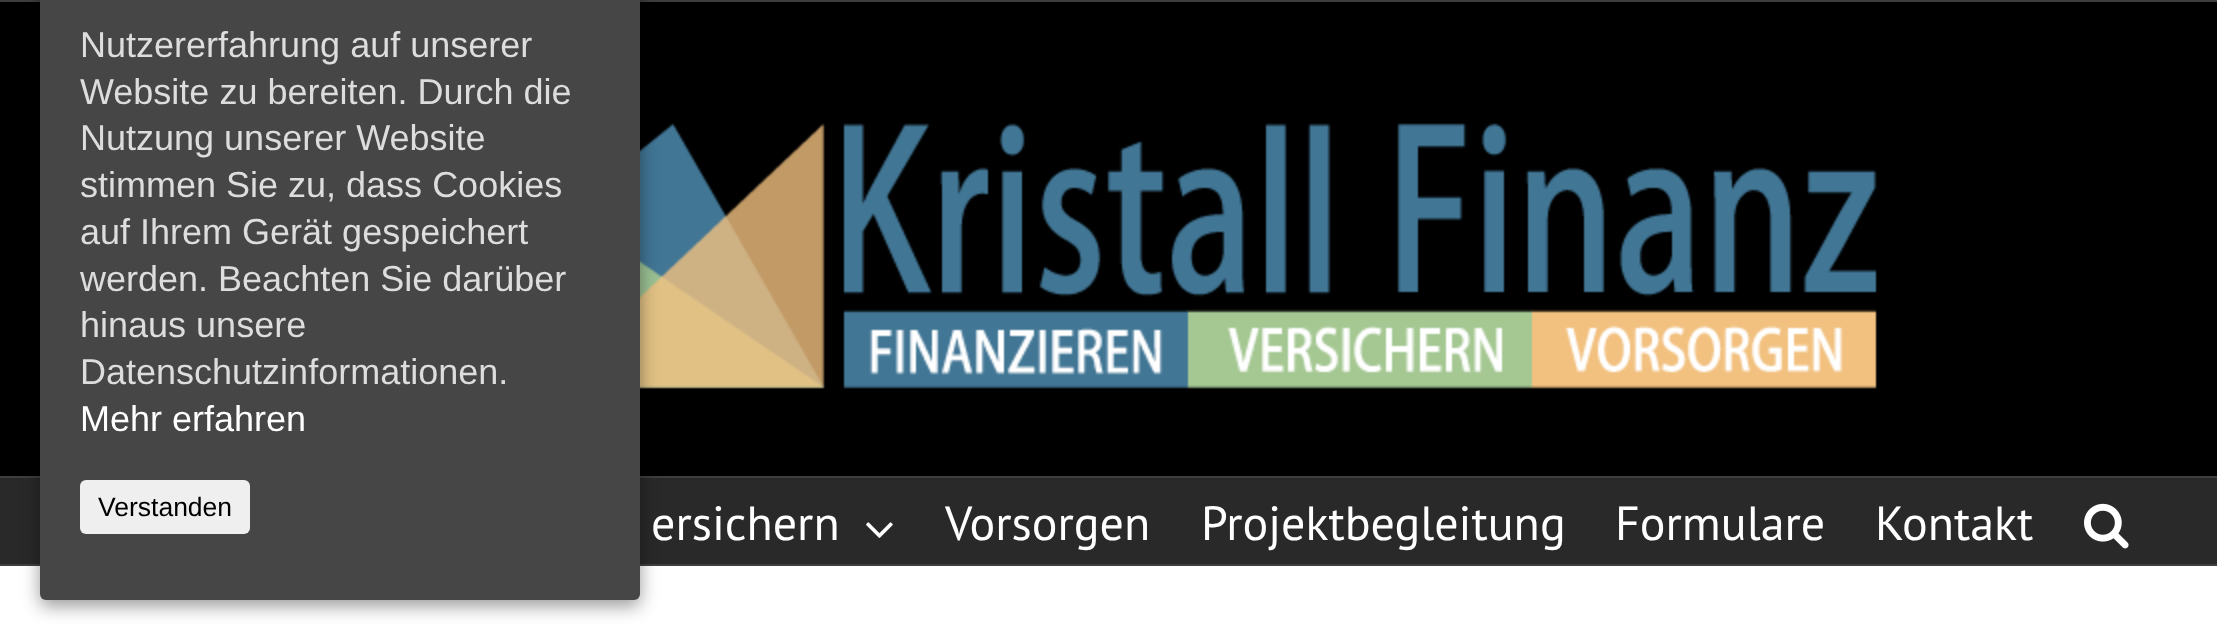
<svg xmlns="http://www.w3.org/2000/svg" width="2217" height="638">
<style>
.a{font:36px Liberation Sans;fill:#ddd}
.b{font:36px Liberation Sans;fill:#fff}
.c{font:26.5px Liberation Sans;fill:#000}
.d{font:48px PT Sans;fill:#fff}
</style>
<rect width="100%" height="100%" fill="#fff"/>
<path fill="#3e3e3e" d="M0 0h2217v2H0z"/>
<path fill="#000" d="M0 2h2217v474H0z"/>
<path fill="#3e3e3e" d="M0 476h2217v2H0z"/>
<image href="1.png" x="640" y="123" width="1237" height="266"/>
<path fill="#29292a" d="M0 478h2217v86H0z"/>
<path fill="#3e3e3e" d="M0 564h2217v2H0z"/>
<rect fill="#00000066" filter="blur(9px)" x="40" y="-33" width="600" height="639" rx="6"/>
<rect fill="#464646" x="40" y="-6" width="600" height="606" rx="6"/>
<rect fill="#efefef" x="80" y="480" width="170" height="54" rx="6"/>
<image href="2.png" x="866" y="522" width="27" height="16"/>
<image href="3.png" x="2084" y="503" width="45" height="46"/>
<text class="a" x="80" y="57">Nutzererfahrung auf unserer</text>
<text class="a" x="80" y="104">Website zu bereiten. Durch die</text>
<text class="a" x="80" y="150">Nutzung unserer Website</text>
<text class="a" x="80" y="197">stimmen Sie zu, dass Cookies</text>
<text class="a" x="80" y="244">auf Ihrem Gerät gespeichert</text>
<text class="a" x="80" y="291">werden. Beachten Sie darüber</text>
<text class="a" x="80" y="337">hinaus unsere</text>
<text class="a" x="80" y="384">Datenschutzinformationen.</text>
<text class="b" x="80" y="431">Mehr erfahren</text>
<text class="c" x="98" y="516">Verstanden</text>
<text class="d" x="651" y="540">ersichern</text>
<text class="d" x="945" y="540">Vorsorgen</text>
<text class="d" x="1201" y="540">Projektbegleitung</text>
<text class="d" x="1615" y="540">Formulare</text>
<text class="d" x="1875" y="540">Kontakt</text>
</svg>
